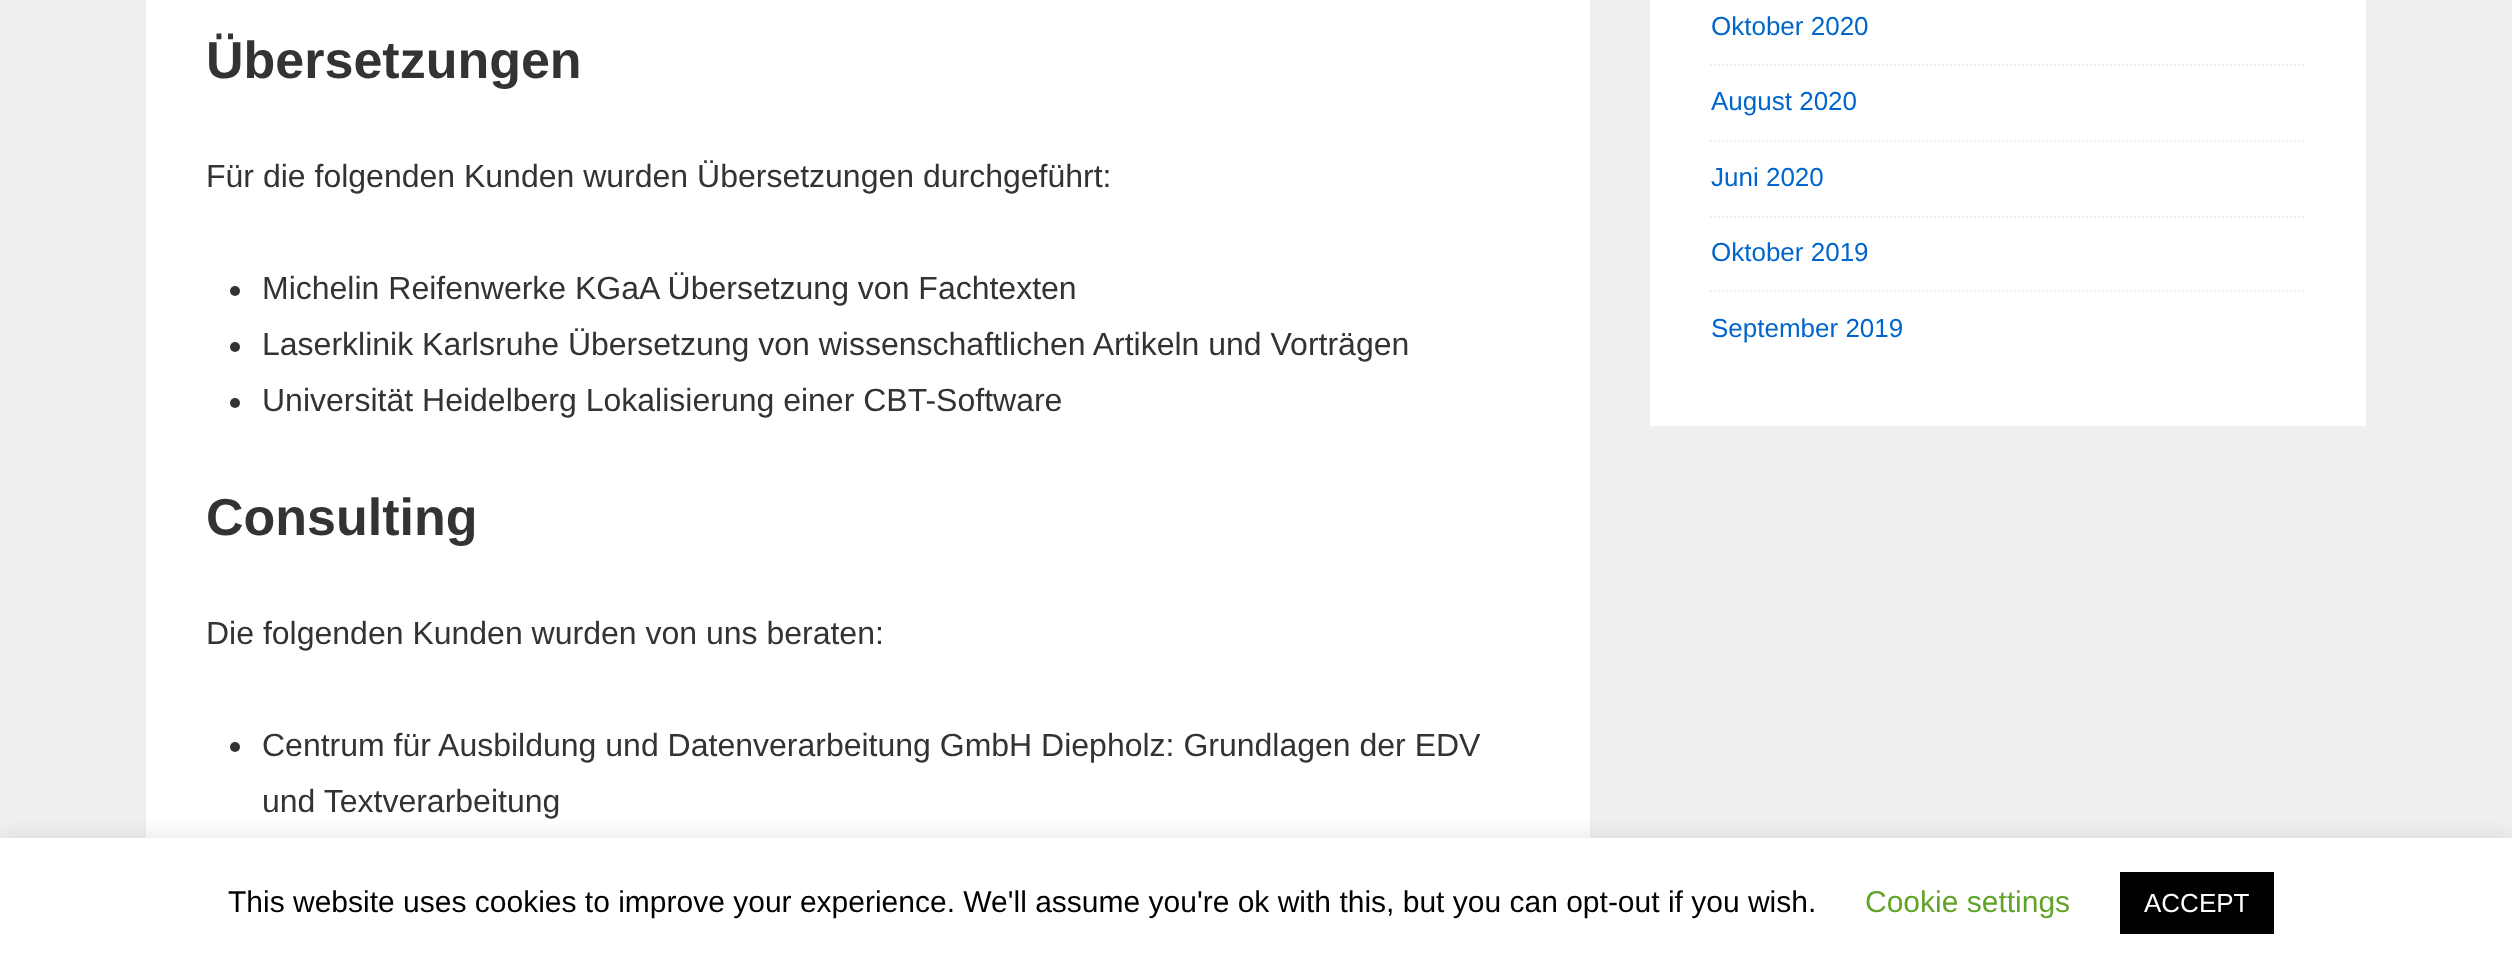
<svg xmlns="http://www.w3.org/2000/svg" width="2512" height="967">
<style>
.a{font:bold 52px Liberation Sans;fill:#333}
.b{font:32px Liberation Sans;fill:#333}
.c{font:26px Liberation Sans;fill:#06c}
.d{font:30px Liberation Sans;fill:#000}
.e{font:30px Liberation Sans;fill:#62a329}
.f{font:26px Liberation Sans;fill:#fff}
</style>
<rect width="100%" height="100%" fill="#efefef"/>
<path fill="#fff" d="M146 0h1444v838H146z"/>
<circle fill="#333" cx="235" cy="291" r="5"/>
<circle fill="#333" cx="235" cy="347" r="5"/>
<circle fill="#333" cx="235" cy="403" r="5"/>
<circle fill="#333" cx="235" cy="747" r="5"/>
<path fill="#fff" d="M1650 0h716v426H1650z"/>
<path fill="none" stroke="#eee" stroke-width="2" stroke-dasharray="2 2" d="M1710 65h596"/>
<path fill="none" stroke="#eee" stroke-width="2" stroke-dasharray="2 2" d="M1710 141h596"/>
<path fill="none" stroke="#eee" stroke-width="2" stroke-dasharray="2 2" d="M1710 217h596"/>
<path fill="none" stroke="#eee" stroke-width="2" stroke-dasharray="2 2" d="M1710 291h596"/>
<path fill="#acabab4d" filter="blur(10px)" d="M0 836h2512v130H0z"/>
<path fill="#fff" d="M0 838h2512v129H0z"/>
<path fill="#000" d="M2120 872h154v62H2120z"/>
<text class="a" x="206" y="78">Übersetzungen</text>
<text class="b" x="206" y="187">Für die folgenden Kunden wurden Übersetzungen durchgeführt:</text>
<text class="b" x="262" y="299">Michelin Reifenwerke KGaA Übersetzung von Fachtexten</text>
<text class="b" x="262" y="355">Laserklinik Karlsruhe Übersetzung von wissenschaftlichen Artikeln und Vorträgen</text>
<text class="b" x="262" y="411">Universität Heidelberg Lokalisierung einer CBT-Software</text>
<text class="a" x="206" y="535">Consulting</text>
<text class="b" x="206" y="644">Die folgenden Kunden wurden von uns beraten:</text>
<text class="b" x="262" y="756">Centrum für Ausbildung und Datenverarbeitung GmbH Diepholz: Grundlagen der EDV</text>
<text class="b" x="262" y="812">und Textverarbeitung</text>
<text class="c" x="1711" y="35">Oktober 2020</text>
<text class="c" x="1711" y="110">August 2020</text>
<text class="c" x="1711" y="186">Juni 2020</text>
<text class="c" x="1711" y="261">Oktober 2019</text>
<text class="c" x="1711" y="337">September 2019</text>
<text class="d" x="228" y="912">This website uses cookies to improve your experience. We'll assume you're ok with this, but you can opt-out if you wish.</text>
<text class="e" x="1865" y="912">Cookie settings</text>
<text class="f" x="2144" y="912">ACCEPT</text>
</svg>
